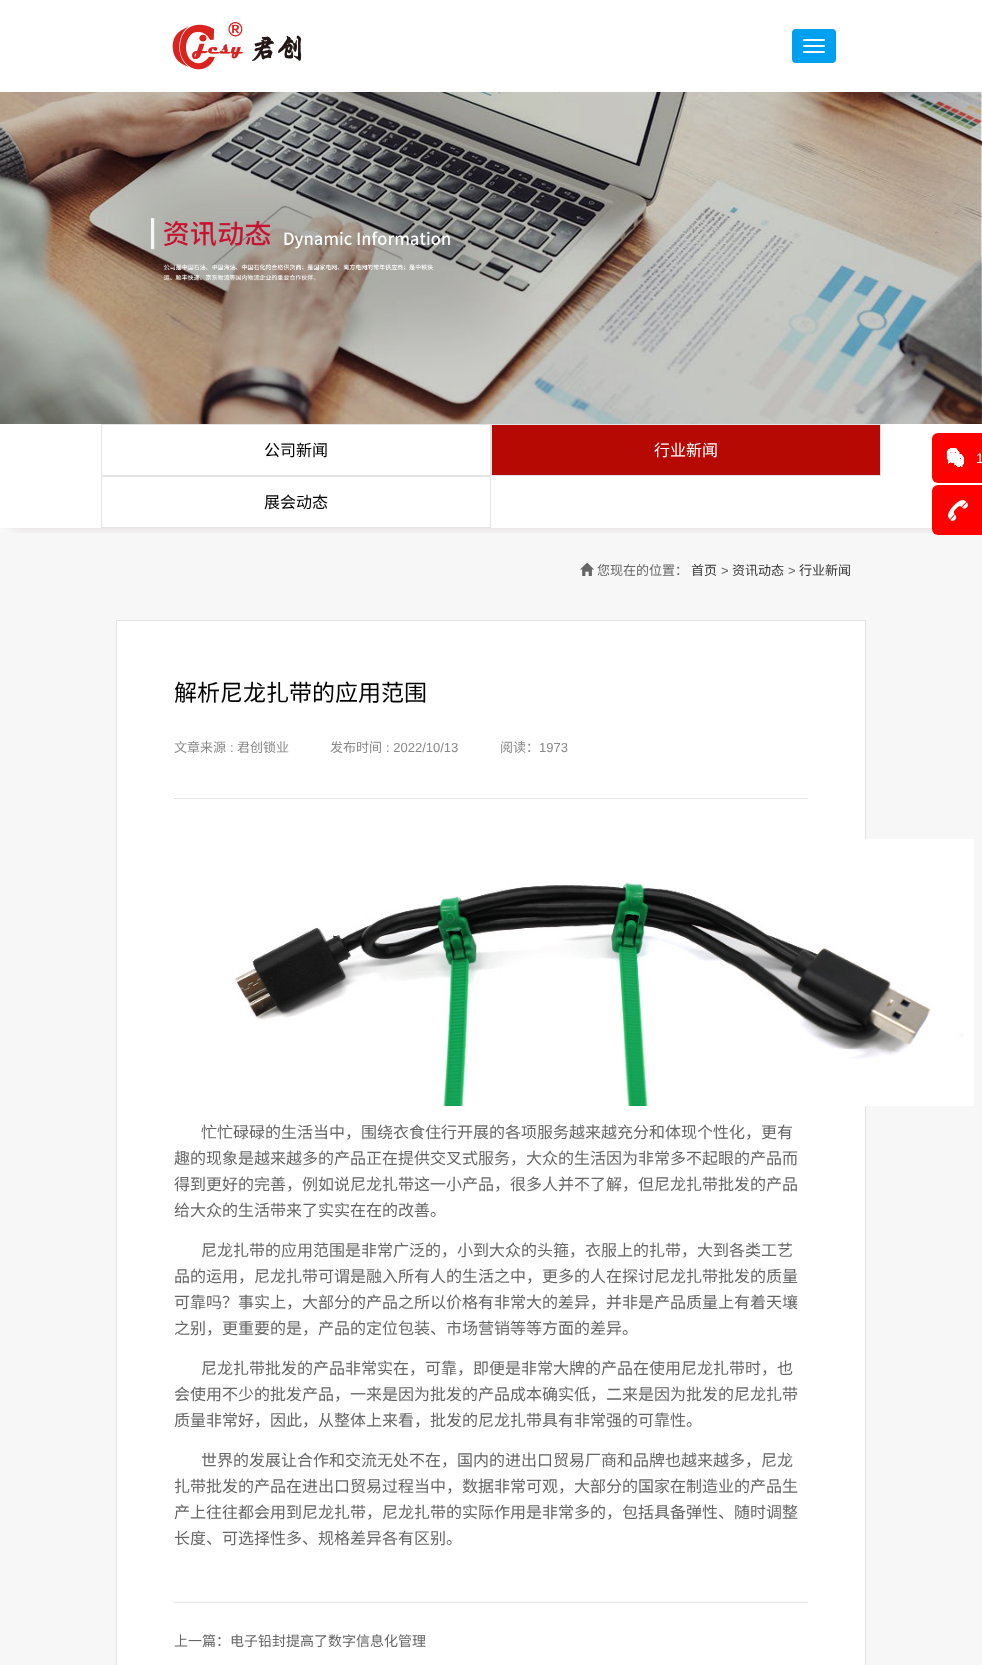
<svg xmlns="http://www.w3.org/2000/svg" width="982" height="1665">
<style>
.a{font:16px Noto Sans CJK SC;fill:#000}
.b{font:16px Noto Sans CJK SC;fill:#fff}
.c{font:14px Liberation Sans;fill:#fff}
.d{font:13px Noto Sans CJK SC;fill:#666}
.e{font:13px Noto Sans CJK SC;fill:#333}
.f{font:13px Liberation Sans;fill:#666}
.g{font:23px Noto Sans CJK SC;fill:#000}
.h{font:13px Noto Sans CJK SC;fill:#888}
.i{font:13px Liberation Sans;fill:#888}
.j{font:16px Noto Sans CJK SC;fill:#666}
.k{font:14px Noto Sans CJK SC;fill:#666}
</style>
<defs>
<clipPath id="clip1"><path d="M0 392h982v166h-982zm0 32h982v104h-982z" clip-rule="evenodd"/></clipPath>
</defs>
<rect width="100%" height="100%" fill="#fff"/>
<image href="1.png" x="172" y="22" width="130" height="48"/>
<rect fill="#00a0f0" x="792" y="29" width="44" height="34" rx="4"/>
<rect fill="#fff" x="803" y="39" width="22" height="2" rx="1"/>
<rect fill="#fff" x="803" y="45" width="22" height="2" rx="1"/>
<rect fill="#fff" x="803" y="51" width="22" height="2" rx="1"/>
<g clip-path="url(#clip1)">
<path fill="#d2cbcb" filter="blur(10px)" d="M7 423h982v104H7z"/>
</g>
<image href="2.png" x="981" y="92" width="1" height="332"/>
<image href="3.png" x="0" y="92" width="982" height="332"/>
<path fill="none" stroke="#e3e3e3" d="M101.5 424.5h389v51H101.5z"/>
<path fill="#b60903" stroke="#e3e3e3" d="M491.5 424.5h389v51H491.5z"/>
<path fill="none" stroke="#e3e3e3" d="M101.5 476.5h389v51H101.5z"/>
<rect fill="#f00" x="932" y="433" width="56" height="50" rx="6"/>
<image href="4.png" x="946" y="448" width="18" height="19"/>
<path fill="#f7f7f7" d="M0 533h982v1132H0z"/>
<rect fill="#f00" x="932" y="485" width="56" height="50" rx="6"/>
<image href="5.png" x="948" y="500" width="20" height="21"/>
<image href="6.png" x="580" y="562" width="14" height="14"/>
<path fill="#fff" stroke="#e3e3e3" d="M116.5 620.5h749v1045H116.5z"/>
<path fill="#e3e3e3" d="M174 798h634v1H174z"/>
<image href="7.png" x="231" y="839" width="743" height="267"/>
<path fill="#e3e3e3" d="M174 1602h634v1H174z"/>
<text class="a" x="264" y="456">公司新闻</text>
<text class="b" x="654" y="456">行业新闻</text>
<text class="a" x="264" y="508">展会动态</text>
<text class="c" x="976" y="463">1</text>
<text class="d" x="597" y="575">您现在的位置：</text>
<text class="e" x="691" y="575">首页</text>
<text class="f" x="721" y="575">&gt;</text>
<text class="e" x="732" y="575">资讯动态</text>
<text class="f" x="788" y="575">&gt;</text>
<text class="e" x="799" y="575">行业新闻</text>
<text class="g" x="174" y="701">解析尼龙扎带的应用范围</text>
<text class="h" x="174" y="752">文章来源</text>
<text class="i" x="230" y="752">:</text>
<text class="h" x="237" y="752">君创锁业</text>
<text class="h" x="330" y="752">发布时间</text>
<text class="i" x="386" y="752">: 2022/10/13</text>
<text class="h" x="500" y="752">阅读：</text>
<text class="i" x="539" y="752">1973</text>
<text class="j" x="201" y="1138">忙忙碌碌的生活当中，围绕衣食住行开展的各项服务越来越充分和体现个性化，更有</text>
<text class="j" x="174" y="1164">趣的现象是越来越多的产品正在提供交叉式服务，大众的生活因为非常多不起眼的产品而</text>
<text class="j" x="174" y="1190">得到更好的完善，例如说尼龙扎带这一小产品，很多人并不了解，但尼龙扎带批发的产品</text>
<text class="j" x="174" y="1216">给大众的生活带来了实实在在的改善。</text>
<text class="j" x="201" y="1256">尼龙扎带的应用范围是非常广泛的，小到大众的头箍，衣服上的扎带，大到各类工艺</text>
<text class="j" x="174" y="1282">品的运用，尼龙扎带可谓是融入所有人的生活之中，更多的人在探讨尼龙扎带批发的质量</text>
<text class="j" x="174" y="1308">可靠吗？事实上，大部分的产品之所以价格有非常大的差异，并非是产品质量上有着天壤</text>
<text class="j" x="174" y="1334">之别，更重要的是，产品的定位包装、市场营销等等方面的差异。</text>
<text class="j" x="201" y="1374">尼龙扎带批发的产品非常实在，可靠，即便是非常大牌的产品在使用尼龙扎带时，也</text>
<text class="j" x="174" y="1400">会使用不少的批发产品，一来是因为批发的产品成本确实低，二来是因为批发的尼龙扎带</text>
<text class="j" x="174" y="1426">质量非常好，因此，从整体上来看，批发的尼龙扎带具有非常强的可靠性。</text>
<text class="j" x="201" y="1466">世界的发展让合作和交流无处不在，国内的进出口贸易厂商和品牌也越来越多，尼龙</text>
<text class="j" x="174" y="1492">扎带批发的产品在进出口贸易过程当中，数据非常可观，大部分的国家在制造业的产品生</text>
<text class="j" x="174" y="1518">产上往往都会用到尼龙扎带，尼龙扎带的实际作用是非常多的，包括具备弹性、随时调整</text>
<text class="j" x="174" y="1544">长度、可选择性多、规格差异各有区别。</text>
<text class="k" x="174" y="1646">上一篇：电子铅封提高了数字信息化管理</text>
</svg>
